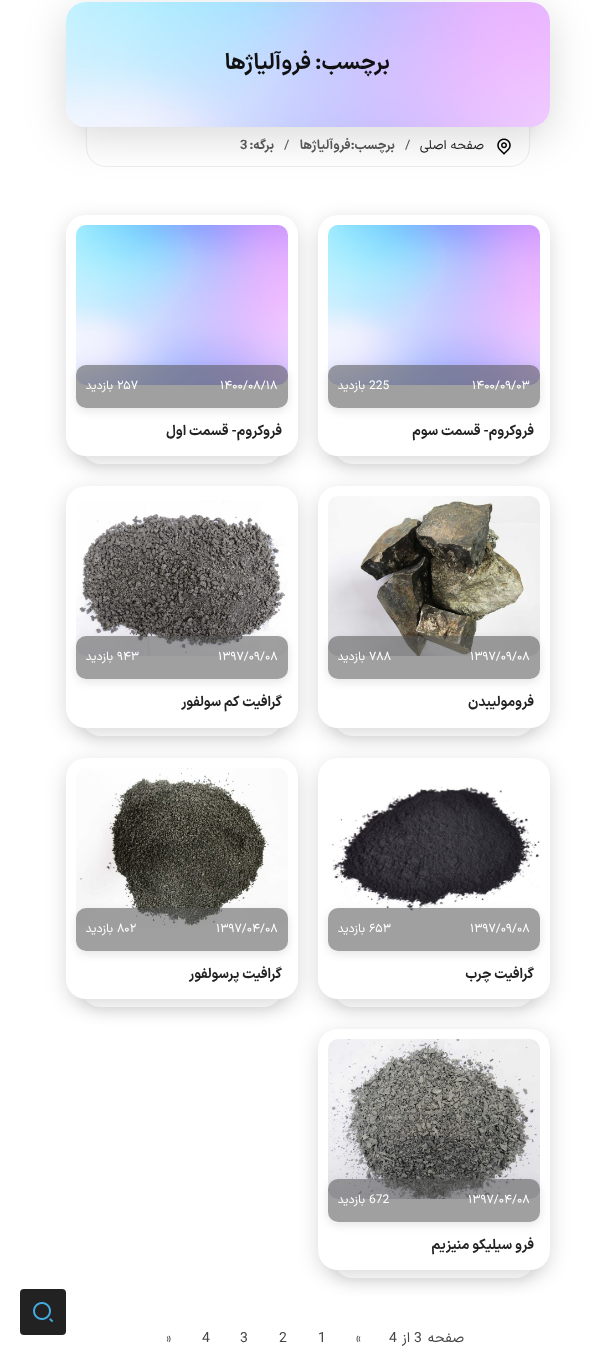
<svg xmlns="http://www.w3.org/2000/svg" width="615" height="1355">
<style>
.a{font:bold 22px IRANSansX;direction:rtl;fill:#111}
.b{font:13px IRANSansX;direction:rtl;fill:#222}
.c{font:13px IRANSansX;fill:#555}
.d{font:bold 13px IRANSansX;direction:rtl;fill:#555}
.e{font:bold 13px IRANSansX;fill:#555}
.f{font:12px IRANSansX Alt;fill:#fff}
.g{font:12px IRANSansX;fill:#fff}
.h{font:12px IRANSansX;direction:rtl;fill:#fff}
.i{font:bold 14px IRANSansX;direction:rtl;fill:#222}
.j{font:14px IRANSansX;direction:rtl;fill:#444}
.k{font:14px IRANSansX;fill:#444}
</style>
<defs>
<clipPath id="clip1"><path d="M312 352h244v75h-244zm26 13h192c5.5 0 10 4.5 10 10v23c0 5.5-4.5 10-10 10h-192c-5.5 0-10-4.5-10-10v-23c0-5.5 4.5-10 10-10z" clip-rule="evenodd"/></clipPath>
<clipPath id="clip2"><path d="M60 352h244v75h-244zm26 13h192c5.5 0 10 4.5 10 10v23c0 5.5-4.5 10-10 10h-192c-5.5 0-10-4.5-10-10v-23c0-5.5 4.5-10 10-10z" clip-rule="evenodd"/></clipPath>
<clipPath id="clip3"><path d="M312 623h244v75h-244zm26 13h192c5.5 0 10 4.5 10 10v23c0 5.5-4.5 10-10 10h-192c-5.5 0-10-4.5-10-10v-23c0-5.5 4.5-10 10-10z" clip-rule="evenodd"/></clipPath>
<clipPath id="clip4"><path d="M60 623h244v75h-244zm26 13h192c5.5 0 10 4.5 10 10v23c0 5.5-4.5 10-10 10h-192c-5.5 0-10-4.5-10-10v-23c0-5.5 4.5-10 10-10z" clip-rule="evenodd"/></clipPath>
<clipPath id="clip5"><path d="M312 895h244v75h-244zm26 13h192c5.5 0 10 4.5 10 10v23c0 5.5-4.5 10-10 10h-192c-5.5 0-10-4.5-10-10v-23c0-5.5 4.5-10 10-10z" clip-rule="evenodd"/></clipPath>
<clipPath id="clip6"><path d="M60 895h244v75h-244zm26 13h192c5.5 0 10 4.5 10 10v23c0 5.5-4.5 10-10 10h-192c-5.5 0-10-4.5-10-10v-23c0-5.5 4.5-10 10-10z" clip-rule="evenodd"/></clipPath>
<clipPath id="clip7"><path d="M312 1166h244v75h-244zm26 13h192c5.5 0 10 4.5 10 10v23c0 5.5-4.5 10-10 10h-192c-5.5 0-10-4.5-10-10v-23c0-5.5 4.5-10 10-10z" clip-rule="evenodd"/></clipPath>
</defs>
<rect width="100%" height="100%" fill="#fff"/>
<rect fill="#0000001a" filter="blur(7.5px)" x="86" y="90" width="444" height="50" rx="20"/>
<path fill="#fff" stroke="#eee" d="M86.5 126.5h443v20.5c0 11-8.5 19.5-19.5 19.5h-404c-11 0-19.5-8.5-19.5-19.5z"/>
<image href="2.png" x="497" y="138" width="14" height="17"/>
<rect fill="#00000026" filter="blur(20px)" x="66" y="12" width="484" height="125" rx="20"/>
<rect fill="#fff" x="66" y="2" width="484" height="125" rx="20"/>
<image href="1.png" x="66" y="2" width="484" height="125"/>
<rect fill="#0000001a" filter="blur(7.5px)" x="333" y="419" width="202" height="50" rx="20"/>
<rect fill="#fff" x="333" y="414" width="202" height="50" rx="20"/>
<rect fill="#00000026" filter="blur(10px)" x="318" y="220" width="232" height="241" rx="20"/>
<rect fill="#fff" x="318" y="215" width="232" height="241" rx="20"/>
<image href="3.png" x="328" y="225" width="212" height="160"/>
<g clip-path="url(#clip1)">
<rect fill="#0000001a" filter="blur(5px)" x="328" y="368" width="212" height="43" rx="10"/>
</g>
<rect fill="#5555558f" x="328" y="365" width="212" height="43" rx="10"/>
<rect fill="#0000001a" filter="blur(7.5px)" x="81" y="419" width="202" height="50" rx="20"/>
<rect fill="#fff" x="81" y="414" width="202" height="50" rx="20"/>
<rect fill="#00000026" filter="blur(10px)" x="66" y="220" width="232" height="241" rx="20"/>
<rect fill="#fff" x="66" y="215" width="232" height="241" rx="20"/>
<image href="3.png" x="76" y="225" width="212" height="160"/>
<g clip-path="url(#clip2)">
<rect fill="#0000001a" filter="blur(5px)" x="76" y="368" width="212" height="43" rx="10"/>
</g>
<rect fill="#5555558f" x="76" y="365" width="212" height="43" rx="10"/>
<rect fill="#0000001a" filter="blur(7.5px)" x="333" y="691" width="202" height="50" rx="20"/>
<rect fill="#fff" x="333" y="686" width="202" height="50" rx="20"/>
<rect fill="#00000026" filter="blur(10px)" x="318" y="491" width="232" height="242" rx="20"/>
<rect fill="#fff" x="318" y="486" width="232" height="242" rx="20"/>
<image href="4.png" x="328" y="496" width="212" height="160"/>
<g clip-path="url(#clip3)">
<rect fill="#0000001a" filter="blur(5px)" x="328" y="639" width="212" height="43" rx="10"/>
</g>
<rect fill="#5555558f" x="328" y="636" width="212" height="43" rx="10"/>
<rect fill="#0000001a" filter="blur(7.5px)" x="81" y="691" width="202" height="50" rx="20"/>
<rect fill="#fff" x="81" y="686" width="202" height="50" rx="20"/>
<rect fill="#00000026" filter="blur(10px)" x="66" y="491" width="232" height="242" rx="20"/>
<rect fill="#fff" x="66" y="486" width="232" height="242" rx="20"/>
<image href="5.png" x="76" y="500" width="212" height="156"/>
<g clip-path="url(#clip4)">
<rect fill="#0000001a" filter="blur(5px)" x="76" y="639" width="212" height="43" rx="10"/>
</g>
<rect fill="#5555558f" x="76" y="636" width="212" height="43" rx="10"/>
<rect fill="#0000001a" filter="blur(7.5px)" x="333" y="962" width="202" height="50" rx="20"/>
<rect fill="#fff" x="333" y="957" width="202" height="50" rx="20"/>
<rect fill="#00000026" filter="blur(10px)" x="318" y="763" width="232" height="241" rx="20"/>
<rect fill="#fff" x="318" y="758" width="232" height="241" rx="20"/>
<image href="6.png" x="329" y="786" width="211" height="125"/>
<g clip-path="url(#clip5)">
<rect fill="#0000001a" filter="blur(5px)" x="328" y="911" width="212" height="43" rx="10"/>
</g>
<rect fill="#5555558f" x="328" y="908" width="212" height="43" rx="10"/>
<rect fill="#0000001a" filter="blur(7.5px)" x="81" y="962" width="202" height="50" rx="20"/>
<rect fill="#fff" x="81" y="957" width="202" height="50" rx="20"/>
<rect fill="#00000026" filter="blur(10px)" x="66" y="763" width="232" height="241" rx="20"/>
<rect fill="#fff" x="66" y="758" width="232" height="241" rx="20"/>
<image href="7.png" x="76" y="768" width="212" height="160"/>
<g clip-path="url(#clip6)">
<rect fill="#0000001a" filter="blur(5px)" x="76" y="911" width="212" height="43" rx="10"/>
</g>
<rect fill="#5555558f" x="76" y="908" width="212" height="43" rx="10"/>
<rect fill="#0000001a" filter="blur(7.5px)" x="333" y="1233" width="202" height="50" rx="20"/>
<rect fill="#fff" x="333" y="1228" width="202" height="50" rx="20"/>
<rect fill="#00000026" filter="blur(10px)" x="318" y="1034" width="232" height="241" rx="20"/>
<rect fill="#fff" x="318" y="1029" width="232" height="241" rx="20"/>
<image href="8.png" x="328" y="1039" width="212" height="160"/>
<g clip-path="url(#clip7)">
<rect fill="#0000001a" filter="blur(5px)" x="328" y="1182" width="212" height="43" rx="10"/>
</g>
<rect fill="#5555558f" x="328" y="1179" width="212" height="43" rx="10"/>
<rect fill="#222" x="20" y="1289" width="46" height="46" rx="4"/>
<image href="9.png" x="33" y="1302" width="21" height="21"/>
<text class="a" x="390" y="69">برچسب:</text>
<text class="a" x="311" y="69">فروآلیاژها</text>
<text class="b" x="484" y="149">صفحه اصلی</text>
<text class="c" x="405" y="149">/</text>
<text class="d" x="395" y="149">برچسب:فروآلیاژها</text>
<text class="c" x="284" y="149">/</text>
<text class="d" x="274" y="149">برگه:</text>
<text class="e" x="240" y="149">3</text>
<text class="f" x="472" y="389">1400/09/03</text>
<text class="g" x="369" y="389">225</text>
<text class="h" x="365" y="389">بازدید</text>
<text class="i" x="534" y="435">فروکروم- قسمت سوم</text>
<text class="f" x="220" y="389">1400/08/18</text>
<text class="f" x="117" y="389">257</text>
<text class="h" x="113" y="389">بازدید</text>
<text class="i" x="282" y="435">فروکروم- قسمت اول</text>
<text class="f" x="470" y="660">1397/09/08</text>
<text class="f" x="369" y="660">788</text>
<text class="h" x="365" y="660">بازدید</text>
<text class="i" x="534" y="706">فرومولیبدن</text>
<text class="f" x="218" y="660">1397/09/08</text>
<text class="f" x="117" y="660">943</text>
<text class="h" x="113" y="660">بازدید</text>
<text class="i" x="282" y="706">گرافیت کم سولفور</text>
<text class="f" x="470" y="932">1397/09/08</text>
<text class="f" x="369" y="932">653</text>
<text class="h" x="365" y="932">بازدید</text>
<text class="i" x="534" y="978">گرافیت چرب</text>
<text class="f" x="216" y="932">1397/04/08</text>
<text class="f" x="117" y="932">802</text>
<text class="h" x="113" y="932">بازدید</text>
<text class="i" x="282" y="978">گرافیت پرسولفور</text>
<text class="f" x="468" y="1203">1397/04/08</text>
<text class="g" x="369" y="1203">672</text>
<text class="h" x="365" y="1203">بازدید</text>
<text class="i" x="534" y="1249">فرو سیلیکو منیزیم</text>
<text class="j" x="464" y="1342">صفحه</text>
<text class="k" x="414" y="1342">3</text>
<text class="j" x="410" y="1342">از</text>
<text class="k" x="389" y="1342">4</text>
<text class="k" x="356" y="1342">«</text>
<text class="k" x="318" y="1342">1</text>
<text class="k" x="279" y="1342">2</text>
<text class="k" x="240" y="1342">3</text>
<text class="k" x="202" y="1342">4</text>
<text class="k" x="166" y="1342">»</text>
</svg>
